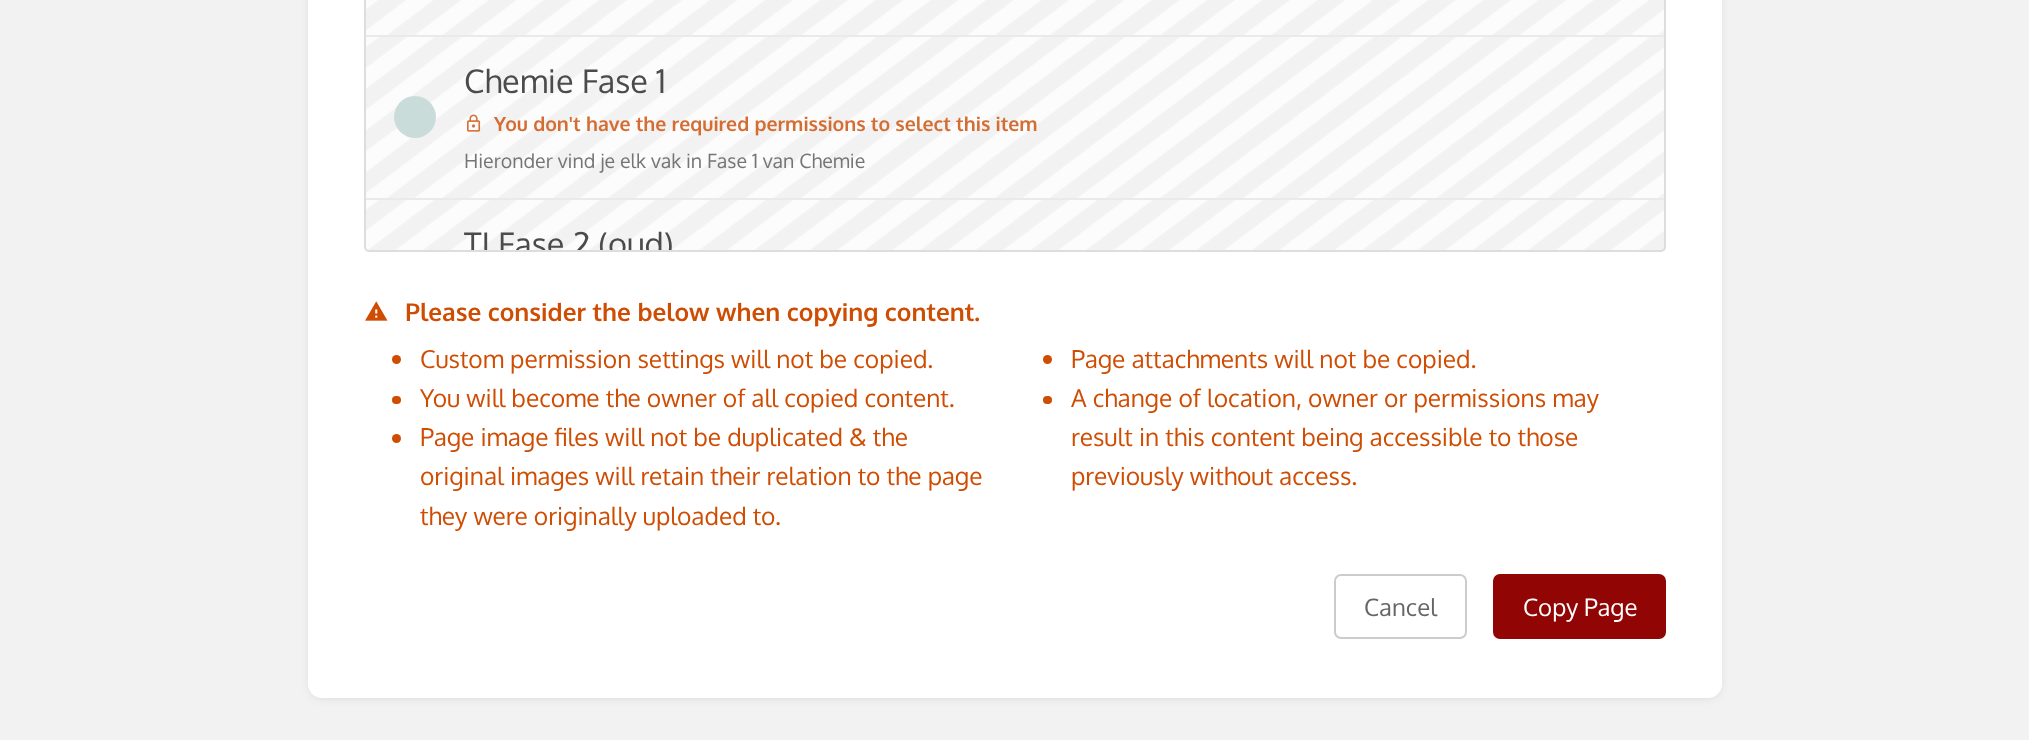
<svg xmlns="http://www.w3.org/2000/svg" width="2029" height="740">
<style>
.a{font:32.5px Oxygen;fill:#4b4b4b}
.b{font:bold 19.6px Oxygen;fill:#d56d32}
.c{font:19.6px Oxygen;fill:#757575}
.d{font:bold 24.5px Oxygen;fill:#cf4d03}
.e{font:24.5px Oxygen;fill:#cf4d03}
.f{font:24px Oxygen;fill:#666}
.g{font:24px Oxygen;fill:#fff}
</style>
<defs>
<clipPath id="clip1"><path d="M366 0h1298v250H366z"/></clipPath>
</defs>
<rect width="100%" height="100%" fill="#f2f2f2"/>
<rect fill="#0000001a" filter="blur(5px)" x="310" y="-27" width="1410" height="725" rx="12"/>
<rect fill="#fff" x="308" y="-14" width="1414" height="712" rx="14"/>
<rect fill="none" stroke="#ddd" stroke-width="2" x="365" y="-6" width="1300" height="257" rx="4"/>
<path fill="#eee" d="M366-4h1298v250c0 2-2 4-4 4h-1290c-2 0-4-2-4-4z"/>
<path fill="#fcfcfc" d="M366 0h1298v35H366z"/>
<image href="1.png" x="366" y="0" width="1298" height="35"/>
<path fill="#eaeaea" d="M366 35h1298v2H366z"/>
<path fill="#fcfcfc" d="M366 37h1298v161H366z"/>
<image href="2.png" x="366" y="37" width="1298" height="161"/>
<circle fill="#c9dcda" cx="415" cy="117" r="21"/>
<image href="3.png" x="467" y="114" width="14" height="18"/>
<path fill="#eaeaea" d="M366 198h1298v2H366z"/>
<path fill="#ffffffcc" d="M366 200h1298v46c0 2-2 4-4 4h-1290c-2 0-4-2-4-4z"/>
<image href="4.png" x="366" y="200" width="1298" height="50"/>
<image href="5.png" x="365" y="301" width="23" height="20"/>
<circle fill="#cf4d03" cx="396.5" cy="359.5" r="4.5"/>
<rect fill="#cf4d03" x="392" y="396" width="9" height="8" rx="4"/>
<circle fill="#cf4d03" cx="396.5" cy="438.5" r="4.5"/>
<circle fill="#cf4d03" cx="1047.5" cy="359.5" r="4.5"/>
<rect fill="#cf4d03" x="1043" y="396" width="9" height="8" rx="4"/>
<rect fill="none" stroke="#ccc" stroke-width="2" x="1335" y="575" width="131" height="63" rx="6"/>
<rect fill="#910505" stroke="#910505" stroke-width="2" x="1494" y="575" width="171" height="63" rx="6"/>
<text class="a" x="464" y="93">Chemie Fase 1</text>
<text class="b" x="494" y="131">You don't have the required permissions to select this item</text>
<text class="c" x="464" y="168">Hieronder vind je elk vak in Fase 1 van Chemie</text>
<g clip-path="url(#clip1)">
<text class="a" x="464" y="256">TI Fase 2 (oud)</text>
</g>
<text class="d" x="405" y="321">Please consider the below when copying content.</text>
<text class="e" x="420" y="368">Custom permission settings will not be copied.</text>
<text class="e" x="420" y="407">You will become the owner of all copied content.</text>
<text class="e" x="420" y="446">Page image files will not be duplicated &amp; the</text>
<text class="e" x="420" y="485">original images will retain their relation to the page</text>
<text class="e" x="420" y="525">they were originally uploaded to.</text>
<text class="e" x="1071" y="368">Page attachments will not be copied.</text>
<text class="e" x="1071" y="407">A change of location, owner or permissions may</text>
<text class="e" x="1071" y="446">result in this content being accessible to those</text>
<text class="e" x="1071" y="485">previously without access.</text>
<text class="f" x="1364" y="616">Cancel</text>
<text class="g" x="1523" y="616">Copy Page</text>
</svg>
